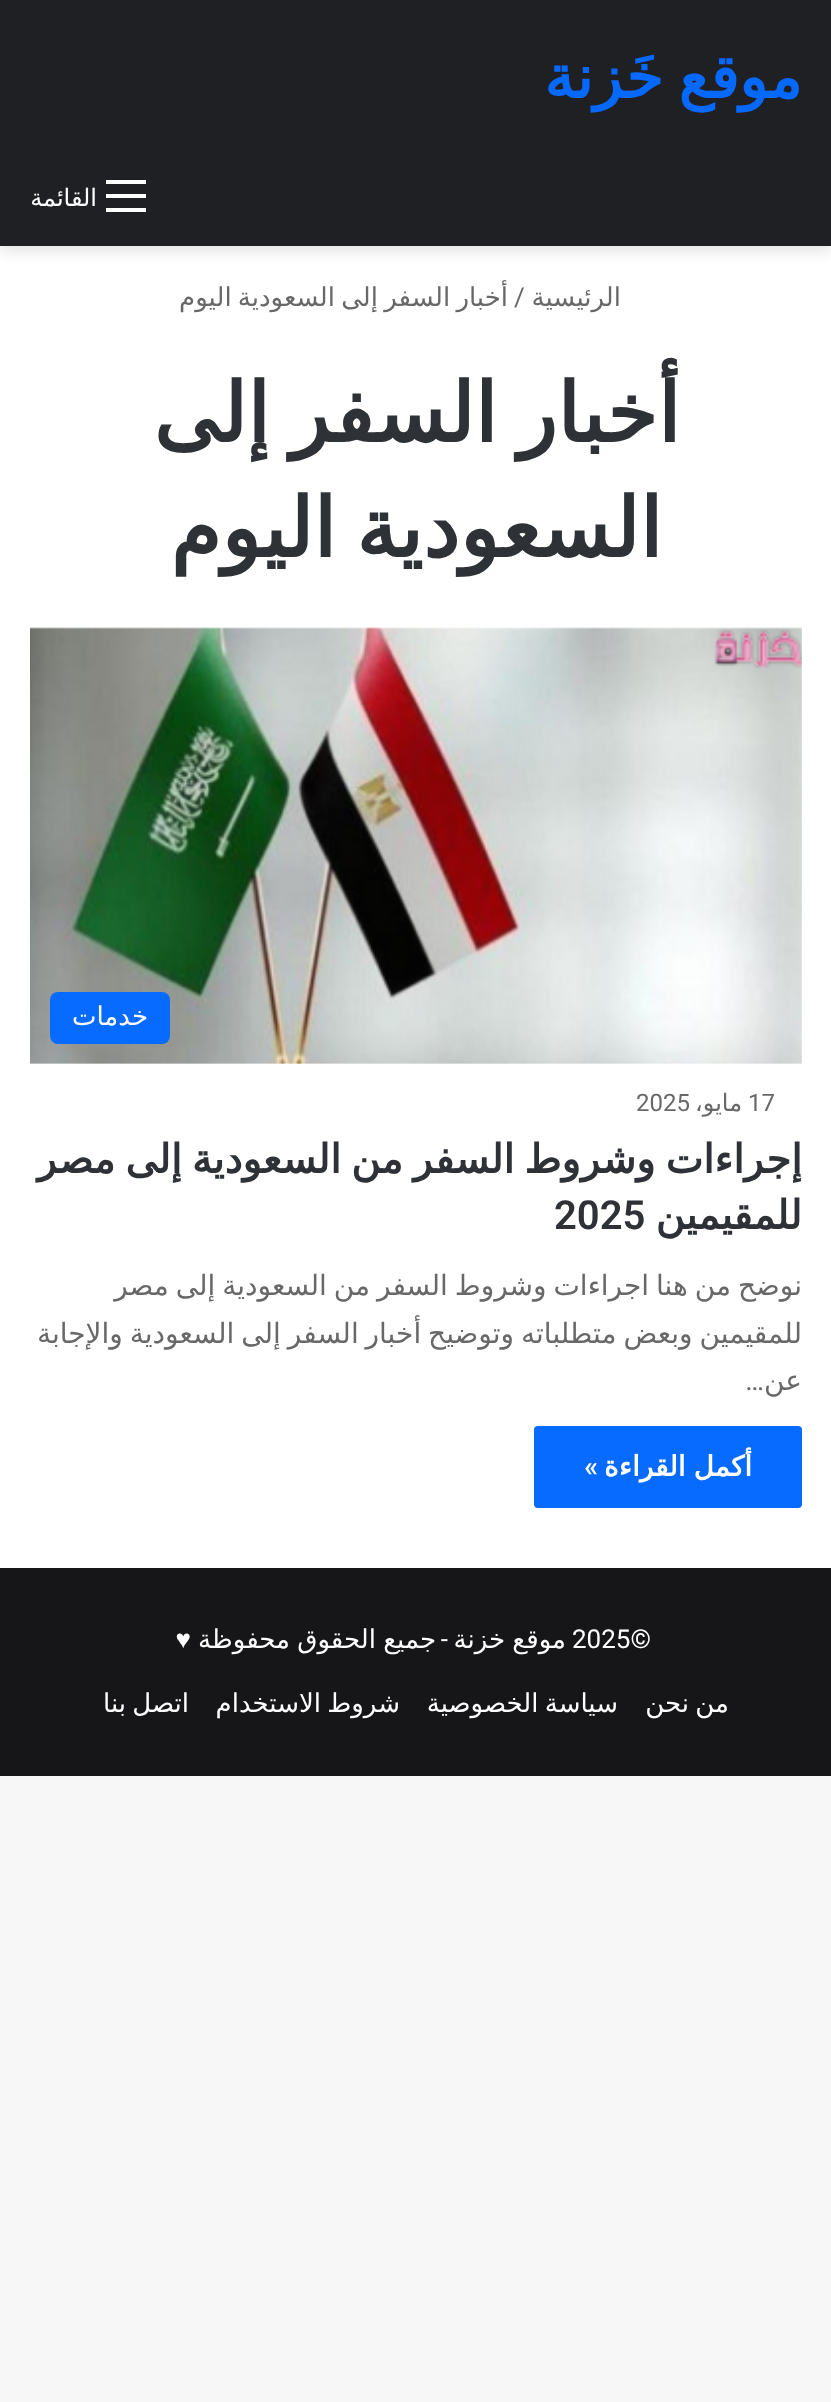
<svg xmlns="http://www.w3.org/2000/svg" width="831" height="2402">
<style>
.a{font:bold 60px DejaVu Sans;direction:rtl;fill:#0669ff}
.b{font:24px DejaVu Sans;direction:rtl;fill:#fff}
.c{font:26px DejaVu Sans;direction:rtl;fill:#686868}
.d{font:26px Roboto;fill:#686868}
.e{font:bold 82px DejaVu Sans;direction:rtl;fill:#2e3136}
.f{font:26px DejaVu Sans;direction:rtl;fill:#fff}
.g{font:24px Roboto;fill:#686868}
.h{font:24px DejaVu Sans;direction:rtl;fill:#686868}
.i{font:bold 40px DejaVu Sans;direction:rtl;fill:#2e3136}
.j{font:600 40px Roboto;fill:#2e3136}
.k{font:28px DejaVu Sans;direction:rtl;fill:#686868}
.l{font:28px Roboto;direction:rtl;fill:#686868}
.m{font:bold 28px DejaVu Sans;direction:rtl;fill:#fff}
.n{font:600 28px Roboto;direction:rtl;fill:#fff}
.o{font:26px Roboto;fill:#fff}
.p{font:26px Roboto;direction:rtl;fill:#fff}
.q{font:26px Liberation Sans;direction:rtl;fill:#fff}
</style>
<rect width="100%" height="100%" fill="#f7f7f7"/>
<path fill="#fff" d="M0 246h831v1322H0z"/>
<path fill="#0000001a" filter="blur(7px)" d="M0 6h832v246H0z"/>
<path fill="#1f2024" d="M0 0h831v246H0z"/>
<path fill="#fff" d="M106 194h40v4H106z"/>
<path fill="#fff" d="M106 180h40v4H106z"/>
<path fill="#fff" d="M106 208h40v4H106z"/>
<image href="1.png" x="30" y="627" width="772" height="437"/>
<rect fill="#086bff" x="50" y="992" width="120" height="52" rx="8"/>
<rect fill="#086bff" x="534" y="1426" width="268" height="82" rx="4"/>
<path fill="#161619" d="M0 1568h831v208H0z"/>
<text class="a" x="802" y="98" word-spacing="-4">موقع خَزنة</text>
<text class="b" x="97" y="206">القائمة</text>
<text class="c" x="621" y="306">الرئيسية</text>
<text class="d" x="514" y="306">/</text>
<text class="c" x="508" y="306" word-spacing="-2">أخبار السفر إلى السعودية اليوم</text>
<text class="e" x="680" y="442" word-spacing="-6">أخبار السفر إلى</text>
<text class="e" x="662" y="557" word-spacing="-6">السعودية اليوم</text>
<text class="f" x="148" y="1025">خدمات</text>
<text class="g" x="748" y="1111">17</text>
<text class="h" x="742" y="1111">مايو،</text>
<text class="g" x="636" y="1111">2025</text>
<text class="i" x="802" y="1173" word-spacing="-2.75">إجراءات وشروط السفر من السعودية إلى مصر</text>
<text class="i" x="802" y="1229">للمقيمين</text>
<text class="j" x="554" y="1229">2025</text>
<text class="k" x="802" y="1295" word-spacing="-2">نوضح من هنا اجراءات وشروط السفر من السعودية إلى مصر</text>
<text class="k" x="802" y="1343" word-spacing="-2">للمقيمين وبعض متطلباته وتوضيح أخبار السفر إلى السعودية والإجابة</text>
<text class="k" x="802" y="1390">عن</text>
<text class="l" x="764" y="1390">…</text>
<text class="m" x="752" y="1476" word-spacing="-1">أكمل القراءة</text>
<text class="n" x="598" y="1476">»</text>
<text class="o" x="572" y="1648">2025©</text>
<text class="f" x="566" y="1648" word-spacing="-1">موقع خزنة</text>
<text class="p" x="448" y="1648">-</text>
<text class="f" x="436" y="1648" word-spacing="-1">جميع الحقوق محفوظة</text>
<text class="q" x="191" y="1648">♥</text>
<text class="f" x="729" y="1712" word-spacing="-2">من نحن</text>
<text class="f" x="618" y="1712" word-spacing="-2">سياسة الخصوصية</text>
<text class="f" x="400" y="1712" word-spacing="-2">شروط الاستخدام</text>
<text class="f" x="189" y="1712" word-spacing="-2">اتصل بنا</text>
</svg>
